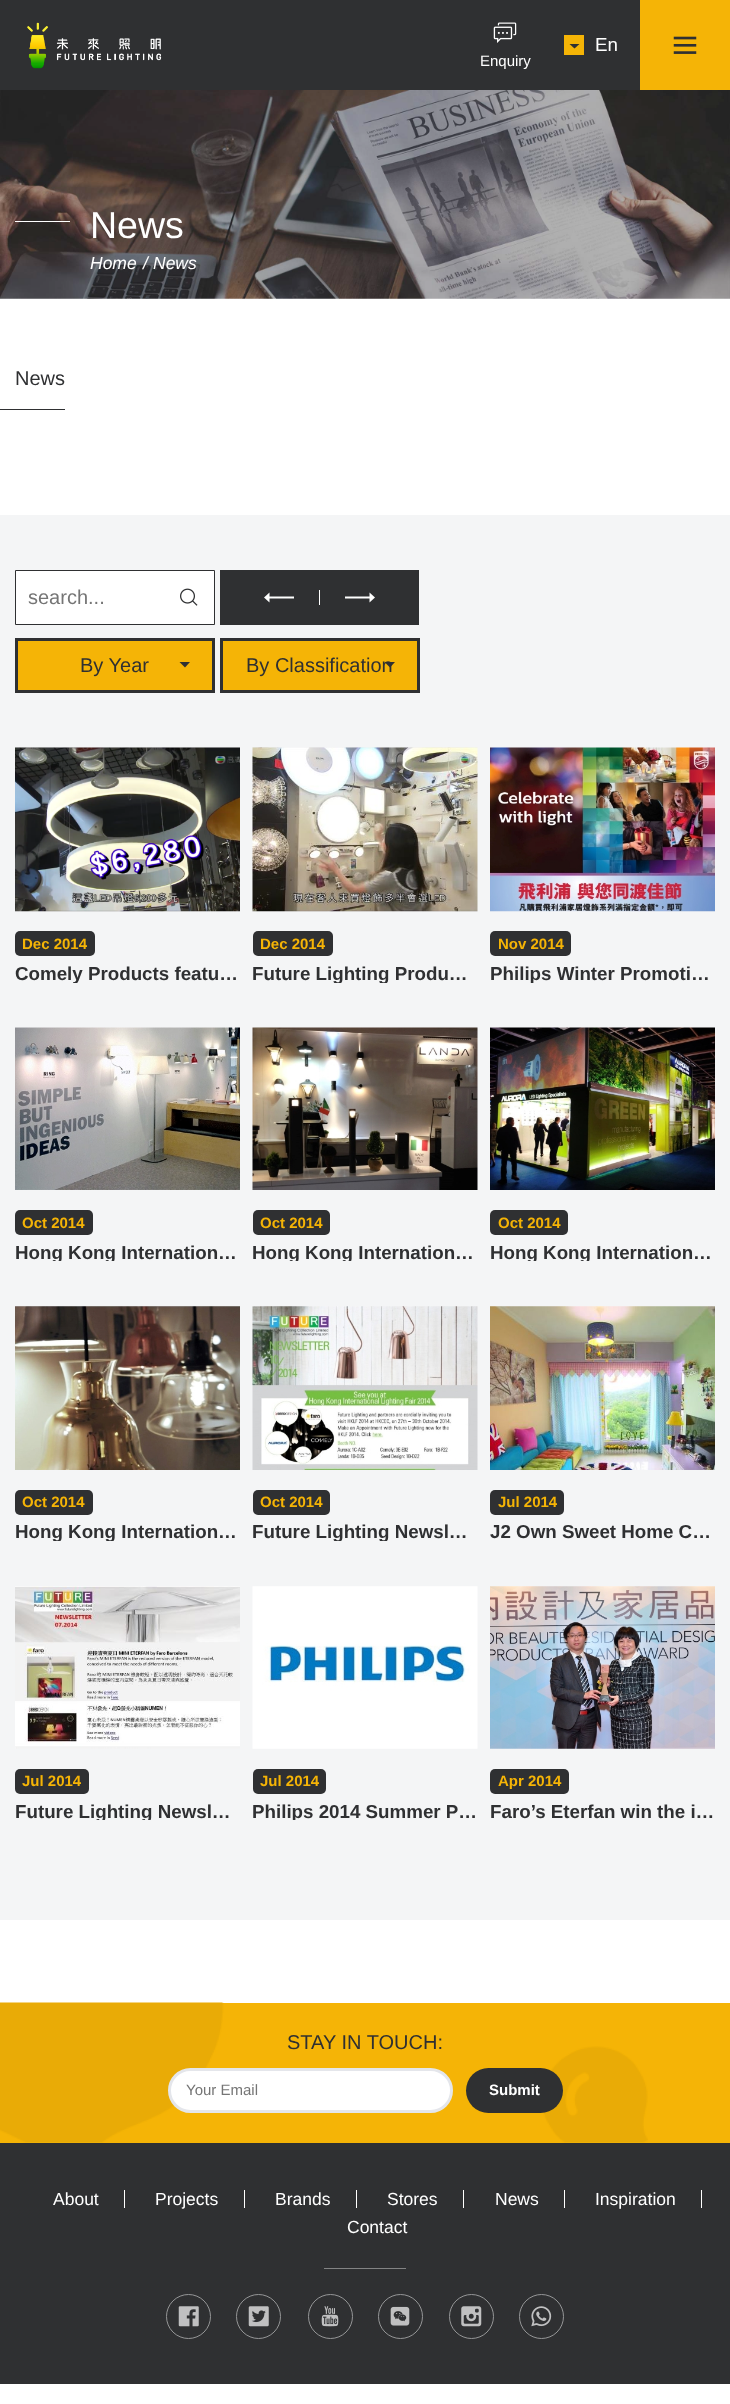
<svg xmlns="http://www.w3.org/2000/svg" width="730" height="2404">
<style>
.a{font:18.75px Liberation Sans;fill:#fff}
.b{font:15px Liberation Sans;fill:#fff}
.c{font:37.5px Liberation Sans;fill:#fff}
.d{font:italic 17.5px Liberation Sans;fill:#fff}
.e{font:20px Liberation Sans;fill:#2f3032}
.f{font:20px Liberation Sans;fill:#757575}
.g{font:bold 15px Liberation Sans;fill:#f5b406}
.h{font:bold 18.75px Liberation Sans;fill:#2f3032}
.i{font:15px Liberation Sans;fill:#757575}
.j{font:bold 15px Liberation Sans;fill:#fff}
.k{font:17.5px Liberation Sans;fill:#fff}
</style>
<defs>
<clipPath id="clip1"><path d="M15 964h225v19H15z"/></clipPath>
<clipPath id="clip2"><path d="M253 964h225v19H253z"/></clipPath>
<clipPath id="clip3"><path d="M490 964h225v19H490z"/></clipPath>
<clipPath id="clip4"><path d="M15 1243h225v18H15z"/></clipPath>
<clipPath id="clip5"><path d="M253 1243h225v18H253z"/></clipPath>
<clipPath id="clip6"><path d="M490 1243h225v18H490z"/></clipPath>
<clipPath id="clip7"><path d="M15 1523h225v18H15z"/></clipPath>
<clipPath id="clip8"><path d="M253 1523h225v18H253z"/></clipPath>
<clipPath id="clip9"><path d="M15 1801h225v19H15z"/></clipPath>
<clipPath id="clip10"><path d="M253 1801h225v19H253z"/></clipPath>
</defs>
<rect width="100%" height="100%" fill="#fff"/>
<path fill="#2f3032" d="M0 0h640v90H0z"/>
<image href="1.png" x="27" y="22" width="135" height="47"/>
<path fill="#f5b406" d="M564 35h20v20H564z"/>
<path fill="#2f3032" d="M574.5 48.5l5-4.5h-10z"/>
<image href="2.png" x="493" y="22" width="24" height="21"/>
<path fill="#f5b406" d="M640 0h90v90H640z"/>
<image href="3.png" x="673" y="36" width="24" height="18"/>
<image href="4.png" x="0" y="90" width="730" height="209"/>
<path fill="#fff" d="M15 221h55v1H15z"/>
<path fill="#2f3032" d="M0 409h65v1H0z"/>
<path fill="#f4f5f6" d="M0 515h730v1405H0z"/>
<path fill="#fff" stroke="#2f3032" d="M15.5 570.5h199v54H15.5z"/>
<image href="5.png" x="180" y="588" width="18" height="18"/>
<path fill="#2f3032" d="M220 570h199v55H220z"/>
<path fill="#fff" d="M294 598.5h-24.5v-2h24.5zm-24.5 4l-5.5-5l5.5-5zm0 0h0z"/>
<path fill="#fff" d="M319 590h1v15H319z"/>
<path fill="#fff" d="M345 596.5h24.5v2h-24.5zm24.5-4l5.5 5l-5.5 5zm0 0h0z"/>
<path fill="#f5b406" stroke="#2f3032" stroke-width="3" d="M16.5 639.5h197v52H16.5z"/>
<path fill="#2f3032" d="M185 667.5l5-5.5h-10.5z"/>
<path fill="#f5b406" stroke="#2f3032" stroke-width="3" d="M221.5 639.5h197v52H221.5z"/>
<path fill="#2f3032" d="M390 667.5l5-5.5h-10.5z"/>
<image href="6.png" x="15" y="747" width="225" height="165"/>
<rect fill="#2f3032" x="15" y="931" width="80" height="25" rx="5"/>
<image href="7.png" x="252" y="747" width="226" height="165"/>
<rect fill="#2f3032" x="253" y="931" width="80" height="25" rx="5"/>
<image href="8.png" x="490" y="747" width="225" height="165"/>
<rect fill="#2f3032" x="490" y="931" width="81" height="25" rx="5"/>
<image href="9.png" x="15" y="1027" width="225" height="163"/>
<rect fill="#2f3032" x="15" y="1210" width="78" height="25" rx="5"/>
<image href="10.png" x="252" y="1027" width="226" height="163"/>
<rect fill="#2f3032" x="253" y="1210" width="77" height="25" rx="5"/>
<image href="11.png" x="490" y="1027" width="225" height="163"/>
<rect fill="#2f3032" x="490" y="1210" width="78" height="25" rx="5"/>
<image href="12.png" x="15" y="1306" width="225" height="164"/>
<rect fill="#2f3032" x="15" y="1490" width="78" height="25" rx="5"/>
<image href="13.png" x="252" y="1306" width="226" height="164"/>
<rect fill="#2f3032" x="253" y="1490" width="77" height="25" rx="5"/>
<image href="14.png" x="490" y="1306" width="225" height="164"/>
<rect fill="#2f3032" x="490" y="1490" width="74" height="25" rx="5"/>
<image href="15.png" x="15" y="1586" width="225" height="163"/>
<rect fill="#2f3032" x="15" y="1769" width="74" height="25" rx="5"/>
<image href="16.png" x="252" y="1586" width="226" height="163"/>
<rect fill="#2f3032" x="253" y="1769" width="73" height="25" rx="5"/>
<image href="17.png" x="490" y="1586" width="225" height="163"/>
<rect fill="#2f3032" x="490" y="1769" width="79" height="25" rx="5"/>
<path fill="#f5b406" d="M0 2003h730v140H0z"/>
<image href="18.png" x="0" y="2002" width="648" height="141"/>
<rect fill="#fff" stroke="#e4e6eb" stroke-width="3" x="169.5" y="2069.5" width="282" height="42" rx="21"/>
<rect fill="#2f3032" x="466" y="2068" width="97" height="45" rx="22.5"/>
<path fill="#2f3032" d="M0 2143h730v241H0z"/>
<path fill="#fff" d="M124 2190h1v18H124z"/>
<path fill="#fff" d="M244 2190h1v18H244z"/>
<path fill="#fff" d="M356 2190h1v18H356z"/>
<path fill="#fff" d="M463 2190h1v18H463z"/>
<path fill="#fff" d="M564 2190h1v18H564z"/>
<path fill="#fff" d="M701 2190h1v18H701z"/>
<path fill="#828384" d="M324 2268h82v1H324z"/>
<circle fill="none" stroke="#959697" cx="188.5" cy="2316.5" r="22"/>
<image href="19.png" x="178" y="2306" width="21" height="21"/>
<circle fill="none" stroke="#959697" cx="258.5" cy="2316.5" r="22"/>
<image href="20.png" x="248" y="2306" width="21" height="21"/>
<circle fill="none" stroke="#959697" cx="330.5" cy="2316.5" r="22"/>
<image href="21.png" x="321" y="2306" width="18" height="21"/>
<circle fill="none" stroke="#959697" cx="400.5" cy="2316.5" r="22"/>
<image href="22.png" x="390" y="2306" width="20" height="20"/>
<circle fill="none" stroke="#959697" cx="471.5" cy="2316.5" r="22"/>
<image href="23.png" x="461" y="2306" width="21" height="21"/>
<circle fill="none" stroke="#959697" cx="541.5" cy="2316.5" r="22"/>
<image href="24.png" x="531" y="2306" width="21" height="21"/>
<text class="a" x="595" y="51">En</text>
<text class="b" x="480" y="66">Enquiry</text>
<text class="c" x="90" y="238">News</text>
<text class="d" x="90" y="269">Home</text>
<text class="d" x="143" y="269">/</text>
<text class="d" x="153" y="269">News</text>
<text class="e" x="15" y="385">News</text>
<text class="f" x="28" y="604">search...</text>
<text class="e" x="80" y="672">By Year</text>
<text class="e" x="246" y="672">By Classification</text>
<text class="g" x="22" y="949">Dec 2014</text>
<g clip-path="url(#clip1)">
<text class="h" x="15" y="980">Comely Products featu…</text>
</g>
<text class="g" x="260" y="949">Dec 2014</text>
<g clip-path="url(#clip2)">
<text class="h" x="252" y="980">Future Lighting Produ…</text>
</g>
<text class="g" x="498" y="949">Nov 2014</text>
<g clip-path="url(#clip3)">
<text class="h" x="490" y="980">Philips Winter Promoti…</text>
</g>
<text class="g" x="22" y="1228">Oct 2014</text>
<g clip-path="url(#clip4)">
<text class="h" x="15" y="1259">Hong Kong Internation…</text>
</g>
<text class="g" x="260" y="1228">Oct 2014</text>
<g clip-path="url(#clip5)">
<text class="h" x="252" y="1259">Hong Kong Internation…</text>
</g>
<text class="g" x="498" y="1228">Oct 2014</text>
<g clip-path="url(#clip6)">
<text class="h" x="490" y="1259">Hong Kong Internation…</text>
</g>
<text class="g" x="22" y="1507">Oct 2014</text>
<g clip-path="url(#clip7)">
<text class="h" x="15" y="1538">Hong Kong Internation…</text>
</g>
<text class="g" x="260" y="1507">Oct 2014</text>
<g clip-path="url(#clip8)">
<text class="h" x="252" y="1538">Future Lighting Newsl…</text>
</g>
<text class="g" x="498" y="1507">Jul 2014</text>
<text class="h" x="490" y="1538">J2 Own Sweet Home C…</text>
<text class="g" x="22" y="1786">Jul 2014</text>
<g clip-path="url(#clip9)">
<text class="h" x="15" y="1818">Future Lighting Newsl…</text>
</g>
<text class="g" x="260" y="1786">Jul 2014</text>
<g clip-path="url(#clip10)">
<text class="h" x="252" y="1818">Philips 2014 Summer P…</text>
</g>
<text class="g" x="498" y="1786">Apr 2014</text>
<text class="h" x="490" y="1818">Faro’s Eterfan win the i…</text>
<text class="e" x="287" y="2049">STAY IN TOUCH:</text>
<text class="i" x="186" y="2095">Your Email</text>
<text class="j" x="489" y="2095">Submit</text>
<text class="k" x="53" y="2205">About</text>
<text class="k" x="155" y="2205">Projects</text>
<text class="k" x="275" y="2205">Brands</text>
<text class="k" x="387" y="2205">Stores</text>
<text class="k" x="495" y="2205">News</text>
<text class="k" x="595" y="2205">Inspiration</text>
<text class="k" x="347" y="2233">Contact</text>
</svg>
